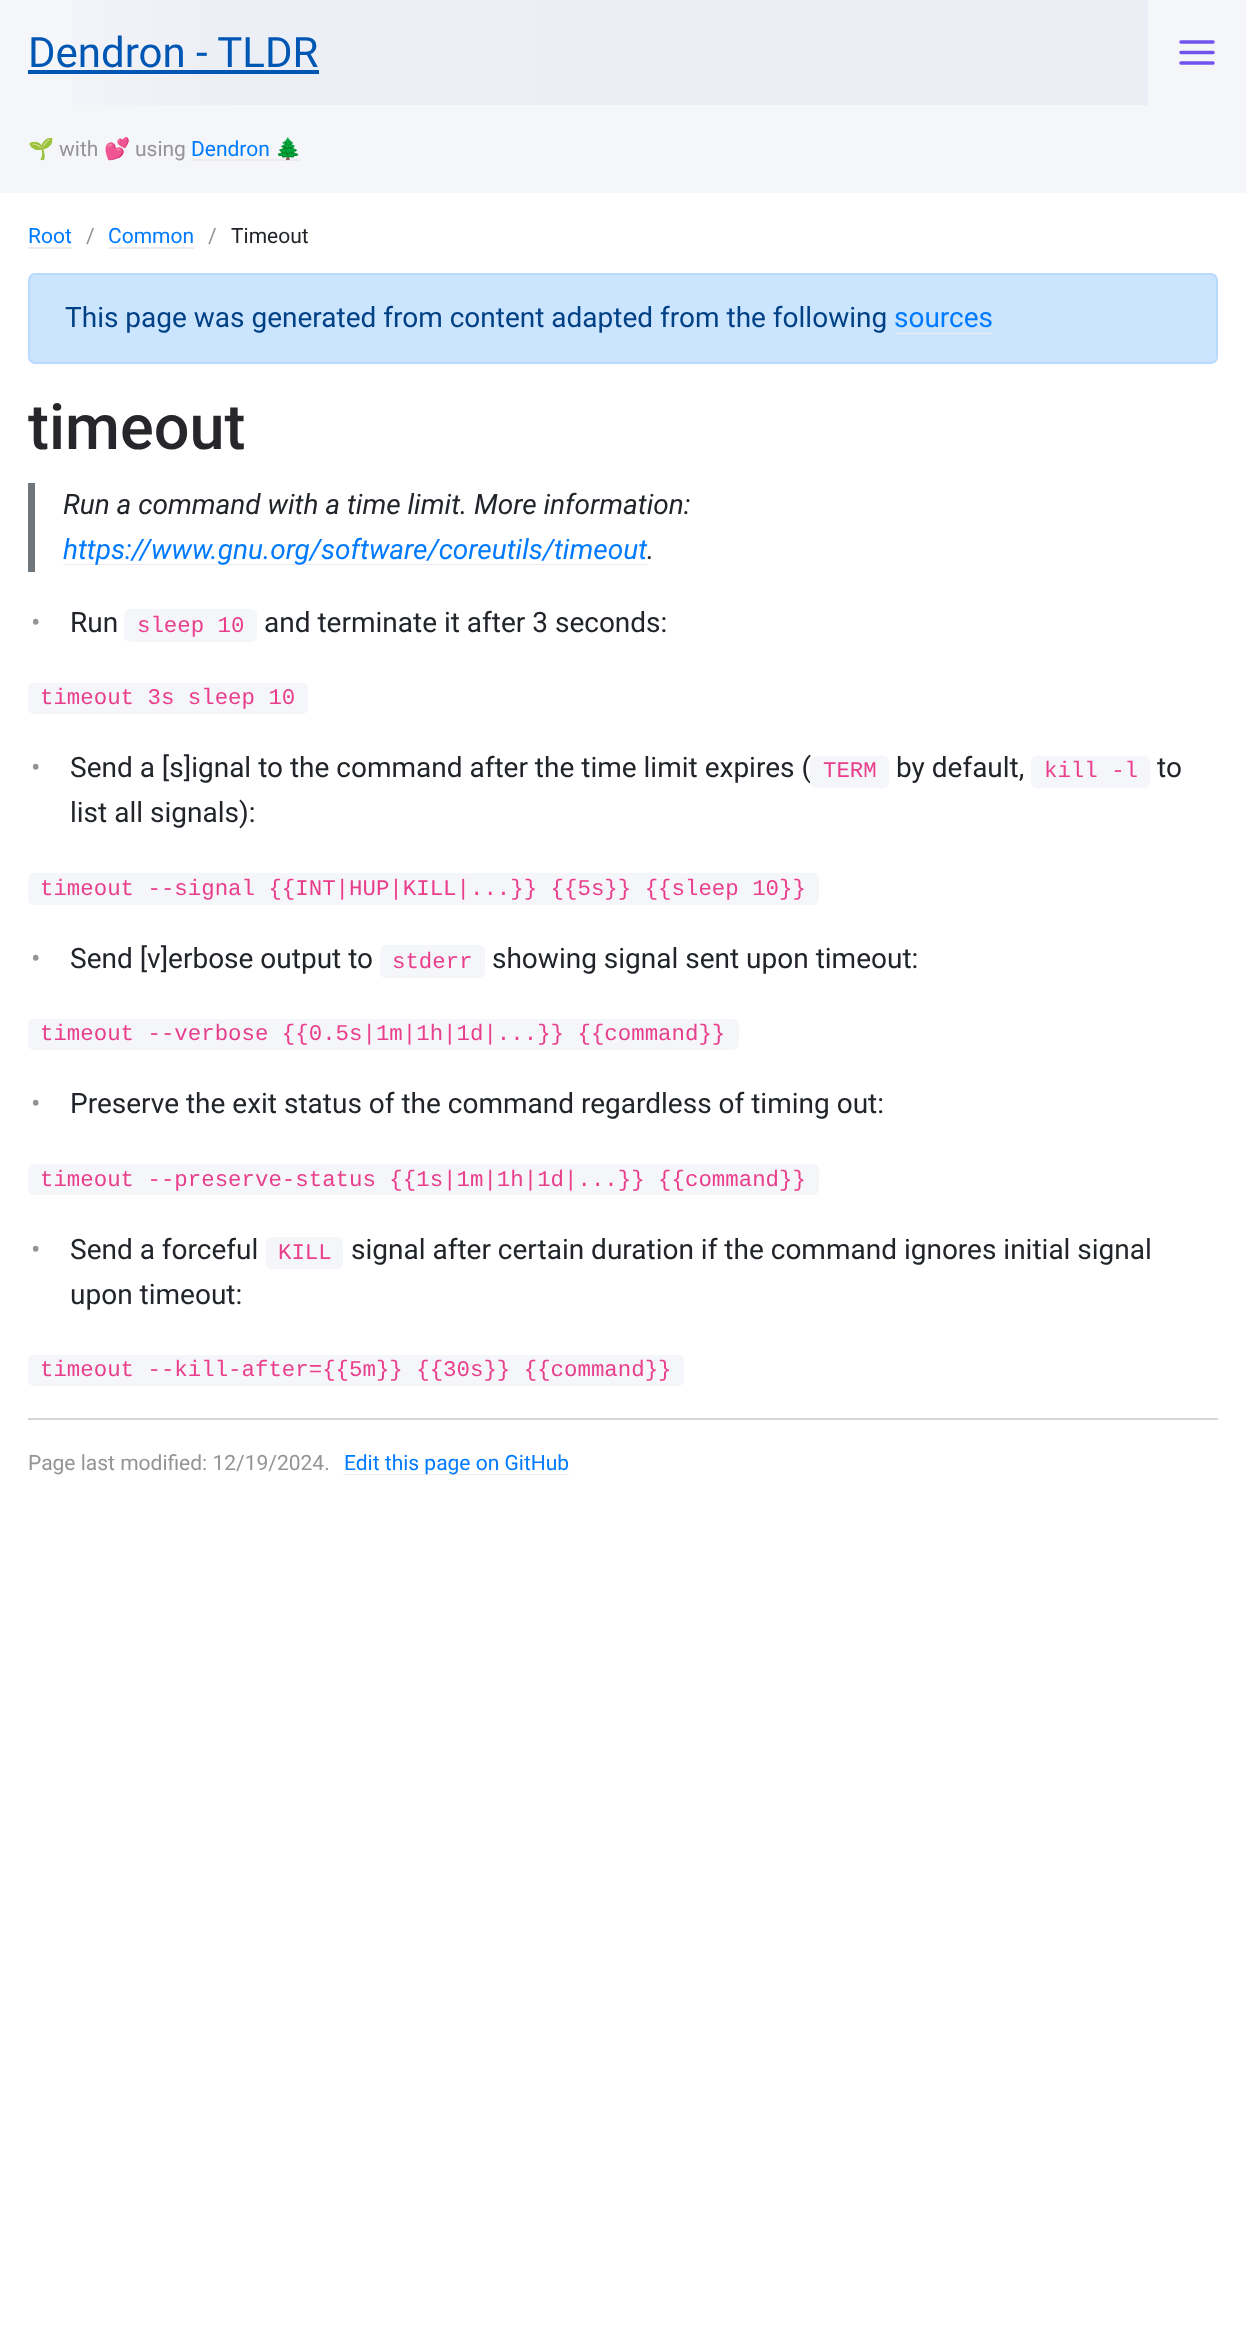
<svg xmlns="http://www.w3.org/2000/svg" width="1246" height="2325">
<style>
.a{font:42px Roboto;fill:#0056b3}
.b{font:21px Noto Color Emoji;fill:#959396}
.c{font:21px Roboto;fill:#959396}
.d{font:21px Roboto;fill:#007bff}
.e{font:21px Noto Color Emoji;fill:#007bff}
.f{font:21px Roboto;fill:#212529}
.g{font:28px Roboto;fill:#004085}
.h{font:28px Roboto;fill:#007bff}
.i{font:500 63px Roboto;fill:#27262b}
.j{font:italic 28px Roboto;fill:#212529}
.k{font:italic 28px Roboto;fill:#007bff}
.l{font:28px Roboto;fill:#959396}
.m{font:28px Roboto;fill:#212529}
.n{font:22.4px Liberation Mono;fill:#e83e8c}
</style>
<defs>
<linearGradient id="g1" gradientUnits="userSpaceOnUse" x1="1148" y1="53" x2="0" y2="52"><stop offset="0" stop-color="#ebedf5"/><stop offset="0.8" stop-color="#edeff6"/><stop offset="1" stop-color="#f5f6fa"/></linearGradient>
</defs>
<rect width="100%" height="100%" fill="#fff"/>
<path fill="#f5f6fa" d="M0 0h1246v193H0z"/>
<path fill="url(#g1)" d="M72 0h1076v105H72z"/>
<path fill="#0056b3" d="M28 70h291v4H28z"/>
<path fill="none" stroke="#7253ed" stroke-width="3.5" stroke-linecap="round" stroke-linejoin="round" d="M1181 52.5h32m-32-10.5h32m-32 21h32"/>
<path fill="#eeebee" d="M191 159h110v2H191z"/>
<path fill="#eeebee" d="M28 247h44v2H28z"/>
<path fill="#eeebee" d="M109 247h85v2H109z"/>
<rect fill="#cce5ff" stroke="#b8daff" stroke-width="2" x="29" y="274" width="1188" height="89" rx="6"/>
<path fill="#eeebee" d="M894 333h98v1H894z"/>
<path fill="#6f777d" d="M28 483h7v89H28z"/>
<path fill="#eeebee" d="M63 564h585v1H63z"/>
<path fill="#f5f6fa" d="M131 609h7v33h-7c-4 0-7-3-7-7v-19c0-4 3-7 7-7z"/>
<path fill="#f5f6fa" d="M138 609h107v33H138z"/>
<path fill="#f5f6fa" d="M245 609h6c3.5 0 6 2.5 6 6v21c0 3.5-2.5 6-6 6h-6z"/>
<path fill="#f5f6fa" d="M34 683h6v31h-6c-3.5 0-6-2.5-6-6v-19c0-3.5 2.5-6 6-6z"/>
<path fill="#f5f6fa" d="M40 683h256v31H40z"/>
<path fill="#f5f6fa" d="M296 683h6c3.5 0 6 2.5 6 6v19c0 3.5-2.5 6-6 6h-6z"/>
<path fill="#f5f6fa" d="M823 756h54v32H823z"/>
<path fill="#f5f6fa" d="M877 756h6c3.5 0 6 2.5 6 6v20c0 3.5-2.5 6-6 6h-6z"/>
<path fill="#f5f6fa" d="M1037 756h6v32h-6c-3.5 0-6-2.5-6-6v-20c0-3.5 2.5-6 6-6z"/>
<path fill="#f5f6fa" d="M1043 756h95v32H1043z"/>
<path fill="#f5f6fa" d="M1138 756h6c3.5 0 6 2.5 6 6v20c0 3.5-2.5 6-6 6h-6z"/>
<path fill="#f5f6fa" d="M34 873h6v32h-6c-3.5 0-6-2.5-6-6v-20c0-3.5 2.5-6 6-6z"/>
<path fill="#f5f6fa" d="M40 873h767v32H40z"/>
<path fill="#f5f6fa" d="M807 873h6c3.5 0 6 2.5 6 6v20c0 3.5-2.5 6-6 6h-6z"/>
<path fill="#f5f6fa" d="M386 945h6v33h-6c-3.5 0-6-2.5-6-6v-21c0-3.5 2.5-6 6-6z"/>
<path fill="#f5f6fa" d="M392 945h81v33H392z"/>
<path fill="#f5f6fa" d="M473 945h6c3.5 0 6 2.5 6 6v21c0 3.5-2.5 6-6 6h-6z"/>
<path fill="#f5f6fa" d="M34 1019h6v31h-6c-3.5 0-6-2.5-6-6v-19c0-3.5 2.5-6 6-6z"/>
<path fill="#f5f6fa" d="M40 1019h686v31H40z"/>
<path fill="#f5f6fa" d="M726 1019h6.5c3.5 0 6.5 3 6.5 6.5v18c0 3.5-3 6.5-6.5 6.5h-6.5z"/>
<path fill="#f5f6fa" d="M34 1164h6v31h-6c-3.5 0-6-2.5-6-6v-19c0-3.5 2.5-6 6-6z"/>
<path fill="#f5f6fa" d="M40 1164h767v31H40z"/>
<path fill="#f5f6fa" d="M807 1164h6c3.5 0 6 2.5 6 6v19c0 3.5-2.5 6-6 6h-6z"/>
<path fill="#f5f6fa" d="M272 1237h6v32h-6c-3.5 0-6-2.5-6-6v-20c0-3.5 2.5-6 6-6z"/>
<path fill="#f5f6fa" d="M278 1237h53v32H278z"/>
<path fill="#f5f6fa" d="M331 1237h6c3.5 0 6 2.5 6 6v20c0 3.5-2.5 6-6 6h-6z"/>
<path fill="#f5f6fa" d="M34 1355h6v31h-6c-3.5 0-6-2.5-6-6v-19c0-3.5 2.5-6 6-6z"/>
<path fill="#f5f6fa" d="M40 1355h632v31H40z"/>
<path fill="#f5f6fa" d="M672 1355h6c3.5 0 6 2.5 6 6v19c0 3.5-2.5 6-6 6h-6z"/>
<path fill="#d6d4d6" d="M28 1418h1190v2H28z"/>
<path fill="#eeebee" d="M343 1474h226v1H343z"/>
<text class="a" x="28" y="67">Dendron - TLDR</text>
<text class="b" x="28" y="156">🌱</text>
<text class="c" x="59" y="156">with</text>
<text class="b" x="104" y="156">💕</text>
<text class="c" x="135" y="156">using</text>
<text class="d" x="191" y="156">Dendron</text>
<text class="e" x="275" y="156">🌲</text>
<text class="d" x="28" y="243">Root</text>
<text class="c" x="86" y="243">/</text>
<text class="d" x="108" y="243">Common</text>
<text class="c" x="208" y="243">/</text>
<text class="f" x="231" y="243">Timeout</text>
<text class="g" x="65" y="327">This page was generated from content adapted from the following</text>
<text class="h" x="894" y="327">sources</text>
<text class="i" x="28" y="449">timeout</text>
<text class="j" x="63" y="514">Run a command with a time limit. More information:</text>
<text class="k" x="63" y="559">https://www.gnu.org/software/coreutils/timeout</text>
<text class="j" x="647" y="559">.</text>
<text class="l" x="31" y="632">•</text>
<text class="m" x="70" y="632">Run</text>
<text class="n" x="137" y="632">sleep 10</text>
<text class="m" x="264" y="632">and terminate it after 3 seconds:</text>
<text class="n" x="40" y="704">timeout 3s sleep 10</text>
<text class="l" x="31" y="777">•</text>
<text class="m" x="70" y="777">Send a [s]ignal to the command after the time limit expires (</text>
<text class="n" x="823" y="777">TERM</text>
<path fill="#f5f6fa" d="M816.5 756h6.5v32h-6.5c-3.5 0-6.5-3-6.5-6.5v-19c0-3.5 3-6.5 6.5-6.5z"/>
<text class="m" x="896" y="777">by default,</text>
<text class="n" x="1044" y="777">kill -l</text>
<text class="m" x="1157" y="777">to</text>
<text class="m" x="70" y="822">list all signals):</text>
<text class="n" x="40" y="895">timeout --signal {{INT|HUP|KILL|...}} {{5s}} {{sleep 10}}</text>
<text class="l" x="31" y="968">•</text>
<text class="m" x="70" y="968">Send [v]erbose output to</text>
<text class="n" x="392" y="968">stderr</text>
<text class="m" x="492" y="968">showing signal sent upon timeout:</text>
<text class="n" x="40" y="1040">timeout --verbose {{0.5s|1m|1h|1d|...}} {{command}}</text>
<text class="l" x="31" y="1113">•</text>
<text class="m" x="70" y="1113">Preserve the exit status of the command regardless of timing out:</text>
<text class="n" x="40" y="1186">timeout --preserve-status {{1s|1m|1h|1d|...}} {{command}}</text>
<text class="l" x="31" y="1259">•</text>
<text class="m" x="70" y="1259">Send a forceful</text>
<text class="n" x="278" y="1259">KILL</text>
<text class="m" x="351" y="1259">signal after certain duration if the command ignores initial signal</text>
<text class="m" x="70" y="1304">upon timeout:</text>
<text class="n" x="40" y="1376">timeout --kill-after={{5m}} {{30s}} {{command}}</text>
<text class="c" x="28" y="1470">Page last modified: 12/19/2024.</text>
<text class="d" x="344" y="1470">Edit this page on GitHub</text>
</svg>
